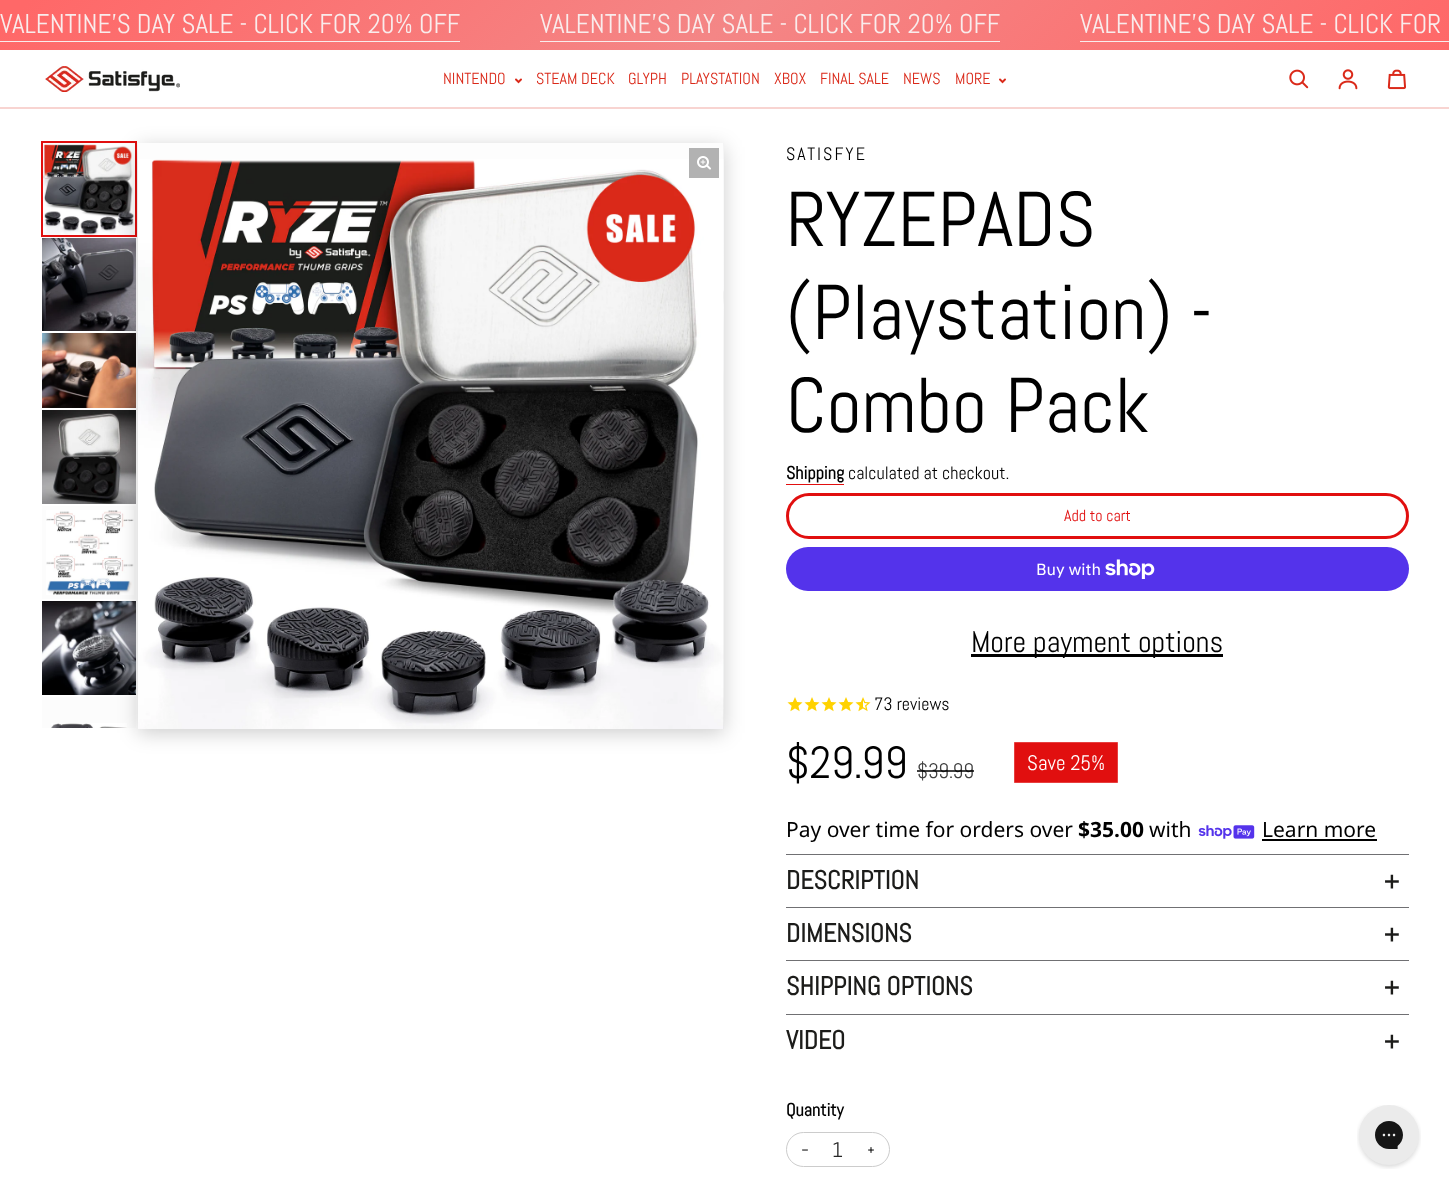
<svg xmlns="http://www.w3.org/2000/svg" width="1449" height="1192">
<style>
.a{font:27px Abel;fill:#f9ecec}
.b{font:16px Abel;fill:#da2919}
.c{font:18px Abel;letter-spacing:2px;fill:#000}
.d{font:77.5px Abel;fill:#000}
.e{font:bold 18px Abel;fill:#000}
.f{font:18px Abel;fill:#000}
.g{font:16px Abel;fill:#e10f0f}
.h{font:16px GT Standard;fill:#fff}
.i{font:30px Abel;fill:#000}
.j{font:45px Abel;fill:#000}
.k{font:21px Abel;fill:#404040}
.l{font:21px Abel;fill:#fff}
.m{font:21px Noto Sans;fill:#000}
.n{font:bold 21px Noto Sans;fill:#000}
.o{font:bold 26px Abel;fill:#1c1c1a}
.p{font:21px Abel;fill:#262626}
</style>
<defs>
<linearGradient id="g1" gradientUnits="userSpaceOnUse" x1="362" y1="-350" x2="1087" y2="400"><stop offset="0.02" stop-color="#ff6868"/><stop offset="0.5" stop-color="#f48686"/><stop offset="1" stop-color="#ff6868"/></linearGradient>
</defs>
<rect width="100%" height="100%" fill="#fff"/>
<path fill="url(#g1)" d="M0 0h1449v50H0z"/>
<path fill="#f9ecec" d="M0 41h460v1H0z"/>
<path fill="#f9ecec" d="M540 41h460v1H540z"/>
<path fill="#f9ecec" d="M1080 41h369v1H1080z"/>
<image href="1.png" x="45" y="66" width="135" height="26"/>
<image href="2.png" x="515" y="78" width="7" height="6"/>
<image href="2.png" x="999" y="78" width="7" height="6"/>
<image href="3.png" x="1289" y="69" width="20" height="20"/>
<image href="4.png" x="1338" y="69" width="20" height="21"/>
<image href="5.png" x="1387" y="69" width="19" height="21"/>
<path fill="#f8d4d1" d="M0 107h1449v2H0z"/>
<path fill="#fcfcfc" d="M43 143h92v1H43z"/>
<image href="6.png" x="43" y="144" width="92" height="91"/>
<path fill="none" stroke="#e10f0f" stroke-width="2" d="M42 142h94v94H42z"/>
<image href="7.png" x="42" y="238" width="94" height="93"/>
<image href="8.png" x="42" y="333" width="94" height="75"/>
<image href="9.png" x="42" y="410" width="94" height="94"/>
<path fill="#fcfcfc" d="M42 506h94v93H42z"/>
<image href="10.png" x="46" y="510" width="88" height="85"/>
<image href="11.png" x="42" y="601" width="94" height="94"/>
<path fill="#fcfcfc" d="M42 697h94v31H42z"/>
<image href="12.png" x="51" y="723" width="76" height="5"/>
<path fill="#00000033" filter="blur(10px)" d="M138 147h586v586H138z"/>
<path fill="#fdfdfd" d="M138 143h586v16H138z"/>
<image href="14.png" x="138" y="159" width="586" height="570"/>
<image href="13.png" x="723" y="143" width="1" height="586"/>
<path fill="#b2b2b2" d="M689 148h30v30H689z"/>
<image href="15.png" x="697" y="156" width="14" height="14"/>
<path fill="#e10f0f" d="M786 484h58v1H786z"/>
<rect fill="none" stroke="#e10f0f" stroke-width="3" x="787.5" y="494.5" width="620" height="43" rx="21.5"/>
<rect fill="#5433eb" x="786" y="547" width="623" height="44" rx="22"/>
<image href="16.png" x="1105" y="559" width="50" height="20"/>
<path fill="#000" d="M971 654h252v3H971z"/>
<image href="17.png" x="787" y="697" width="16" height="15"/>
<image href="17.png" x="804" y="697" width="16" height="15"/>
<image href="17.png" x="821" y="697" width="16" height="15"/>
<image href="17.png" x="838" y="697" width="16" height="15"/>
<image href="18.png" x="855" y="697" width="16" height="15"/>
<path fill="#e10f0f" stroke="#e73f3f" d="M1014.5 742.5h103v40H1014.5z"/>
<image href="19.png" x="1198" y="825" width="57" height="14"/>
<path fill="#000" d="M1262 839h115v2H1262z"/>
<path fill="#707073" d="M786 854h623v1H786z"/>
<path fill="#707073" d="M786 907h623v1H786z"/>
<path fill="#707073" d="M786 960h623v1H786z"/>
<path fill="#707073" d="M786 1014h623v1H786z"/>
<image href="20.png" x="802" y="1149" width="6" height="2"/>
<image href="21.png" x="868" y="1147" width="6" height="6"/>
<rect fill="none" stroke="#ccc" x="786.5" y="1132.5" width="103" height="34" rx="17"/>
<image href="22.png" x="1357" y="1105" width="64" height="64"/>
<text class="a" x="0" y="33">VALENTINE'S DAY SALE - CLICK FOR 20% OFF</text>
<text class="a" x="540" y="33">VALENTINE'S DAY SALE - CLICK FOR 20% OFF</text>
<text class="a" x="1080" y="33">VALENTINE'S DAY SALE - CLICK FOR</text>
<text class="b" x="443" y="84">NINTENDO</text>
<text class="b" x="536" y="84">STEAM DECK</text>
<text class="b" x="628" y="84">GLYPH</text>
<text class="b" x="681" y="84">PLAYSTATION</text>
<text class="b" x="774" y="84">XBOX</text>
<text class="b" x="820" y="84">FINAL SALE</text>
<text class="b" x="903" y="84">NEWS</text>
<text class="b" x="955" y="84">MORE</text>
<text class="c" x="786" y="160">SATISFYE</text>
<text class="d" x="786" y="246">RYZEPADS</text>
<text class="d" x="786" y="339">(Playstation) -</text>
<text class="d" x="786" y="432">Combo Pack</text>
<text class="e" x="786" y="479">Shipping</text>
<text class="f" x="848" y="479">calculated at checkout.</text>
<text class="g" x="1064" y="521">Add to cart</text>
<text class="h" x="1036" y="575">Buy with</text>
<text class="i" x="971" y="652">More payment options</text>
<text class="f" x="874" y="710">73 reviews</text>
<text class="j" x="786" y="778">$29.99</text>
<text class="k" x="917" y="778">$39.99</text>
<path fill="#000000bf" d="M917 770h57v2H917z"/>
<text class="l" x="1027" y="770">Save 25%</text>
<text class="m" x="786" y="837">Pay over time for orders over</text>
<text class="n" x="1078" y="837">$35.00</text>
<text class="m" x="1149" y="837">with</text>
<text class="m" x="1262" y="837">Learn more</text>
<text class="o" x="786" y="889">DESCRIPTION</text>
<text class="o" x="1384" y="891">+</text>
<text class="o" x="786" y="942">DIMENSIONS</text>
<text class="o" x="1384" y="944">+</text>
<text class="o" x="786" y="995">SHIPPING OPTIONS</text>
<text class="o" x="1384" y="997">+</text>
<text class="o" x="786" y="1049">VIDEO</text>
<text class="o" x="1384" y="1051">+</text>
<text class="e" x="786" y="1116">Quantity</text>
<text class="p" x="832" y="1157">1</text>
</svg>
